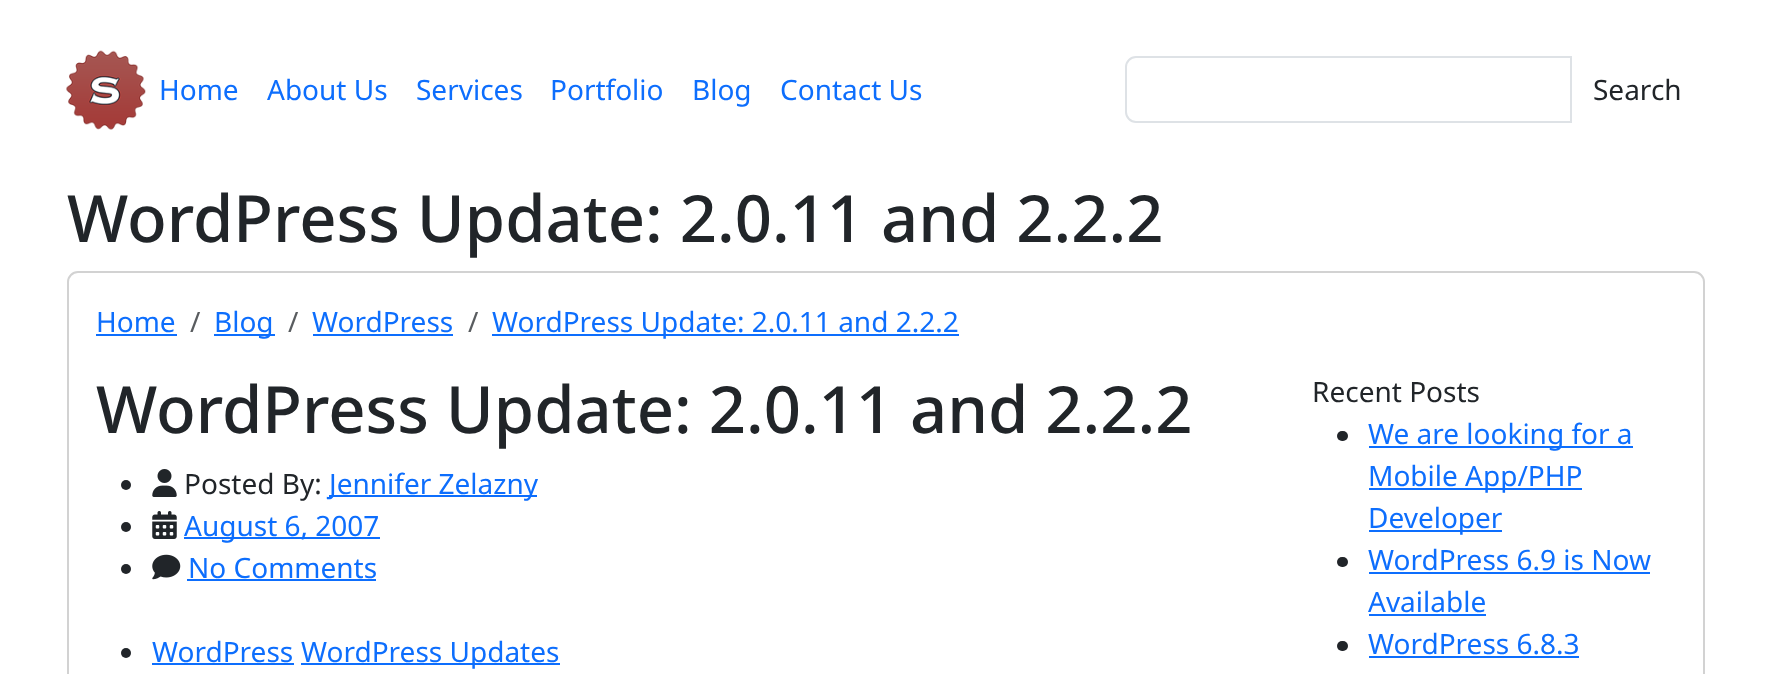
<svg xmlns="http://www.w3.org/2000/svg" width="1770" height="674">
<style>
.a{font:28px Noto Sans;fill:#0d6efd}
.b{font:28px Noto Sans;fill:#212529}
.c{font:500 65.1px Noto Sans;fill:#212529}
.d{font:28px Noto Sans;fill:#595c5f}
</style>
<rect width="100%" height="100%" fill="#fff"/>
<image href="1.png" x="66" y="50" width="80" height="80"/>
<path fill="none" stroke="#dee2e6" stroke-width="2" d="M1136 57h435v65h-435c-5.5 0-10-4.5-10-10v-45c0-5.5 4.5-10 10-10z"/>
<rect fill="none" stroke="#d2d2d2" stroke-width="2" x="68" y="272" width="1636" height="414" rx="10"/>
<path fill="#0d6efd" d="M96 334h81v2H96z"/>
<path fill="#0d6efd" d="M214 334h61v2H214z"/>
<path fill="#0d6efd" d="M313 334h140v2H313z"/>
<path fill="#0d6efd" d="M492 334h467v2H492z"/>
<circle fill="#212529" cx="126" cy="485" r="5"/>
<image href="2.png" x="152" y="469" width="25" height="28"/>
<path fill="#0d6efd" d="M329 495h208v2H329z"/>
<circle fill="#212529" cx="126" cy="527" r="5"/>
<image href="3.png" x="152" y="511" width="25" height="28"/>
<path fill="#0d6efd" d="M184 537h196v2H184z"/>
<circle fill="#212529" cx="126" cy="569" r="5"/>
<image href="4.png" x="152" y="554" width="29" height="26"/>
<path fill="#0d6efd" d="M187 579h189v2H187z"/>
<circle fill="#212529" cx="126" cy="653" r="5"/>
<path fill="#0d6efd" d="M152 663h142v2H152z"/>
<path fill="#0d6efd" d="M301 663h259v2H301z"/>
<rect fill="#212529" x="1337" y="431" width="11" height="10" rx="5"/>
<path fill="#0d6efd" d="M1369 446h264v2H1369z"/>
<path fill="#0d6efd" d="M1369 488h213v2H1369z"/>
<path fill="#0d6efd" d="M1369 530h133v2H1369z"/>
<rect fill="#212529" x="1337" y="557" width="11" height="10" rx="5"/>
<path fill="#0d6efd" d="M1369 572h281v2H1369z"/>
<path fill="#0d6efd" d="M1369 614h117v2H1369z"/>
<rect fill="#212529" x="1337" y="641" width="11" height="10" rx="5"/>
<path fill="#0d6efd" d="M1369 656h210v2H1369z"/>
<text class="a" x="159" y="100">Home</text>
<text class="a" x="267" y="100">About Us</text>
<text class="a" x="416" y="100">Services</text>
<text class="a" x="550" y="100">Portfolio</text>
<text class="a" x="692" y="100">Blog</text>
<text class="a" x="780" y="100">Contact Us</text>
<text class="b" x="1593" y="100">Search</text>
<text class="c" x="67" y="242">WordPress Update: 2.0.11 and 2.2.2</text>
<text class="a" x="96" y="332">Home</text>
<text class="d" x="190" y="332">/</text>
<text class="a" x="214" y="332">Blog</text>
<text class="d" x="288" y="332">/</text>
<text class="a" x="312" y="332">WordPress</text>
<text class="d" x="468" y="332">/</text>
<text class="a" x="492" y="332">WordPress Update: 2.0.11 and 2.2.2</text>
<text class="c" x="96" y="433">WordPress Update: 2.0.11 and 2.2.2</text>
<text class="b" x="184" y="494">Posted By:</text>
<text class="a" x="329" y="494">Jennifer Zelazny</text>
<text class="a" x="184" y="536">August 6, 2007</text>
<text class="a" x="188" y="578">No Comments</text>
<text class="a" x="152" y="662">WordPress</text>
<text class="a" x="301" y="662">WordPress Updates</text>
<text class="b" x="1312" y="402">Recent Posts</text>
<text class="a" x="1368" y="444">We are looking for a</text>
<text class="a" x="1368" y="486">Mobile App/PHP</text>
<text class="a" x="1368" y="528">Developer</text>
<text class="a" x="1368" y="570">WordPress 6.9 is Now</text>
<text class="a" x="1368" y="612">Available</text>
<text class="a" x="1368" y="654">WordPress 6.8.3</text>
</svg>
